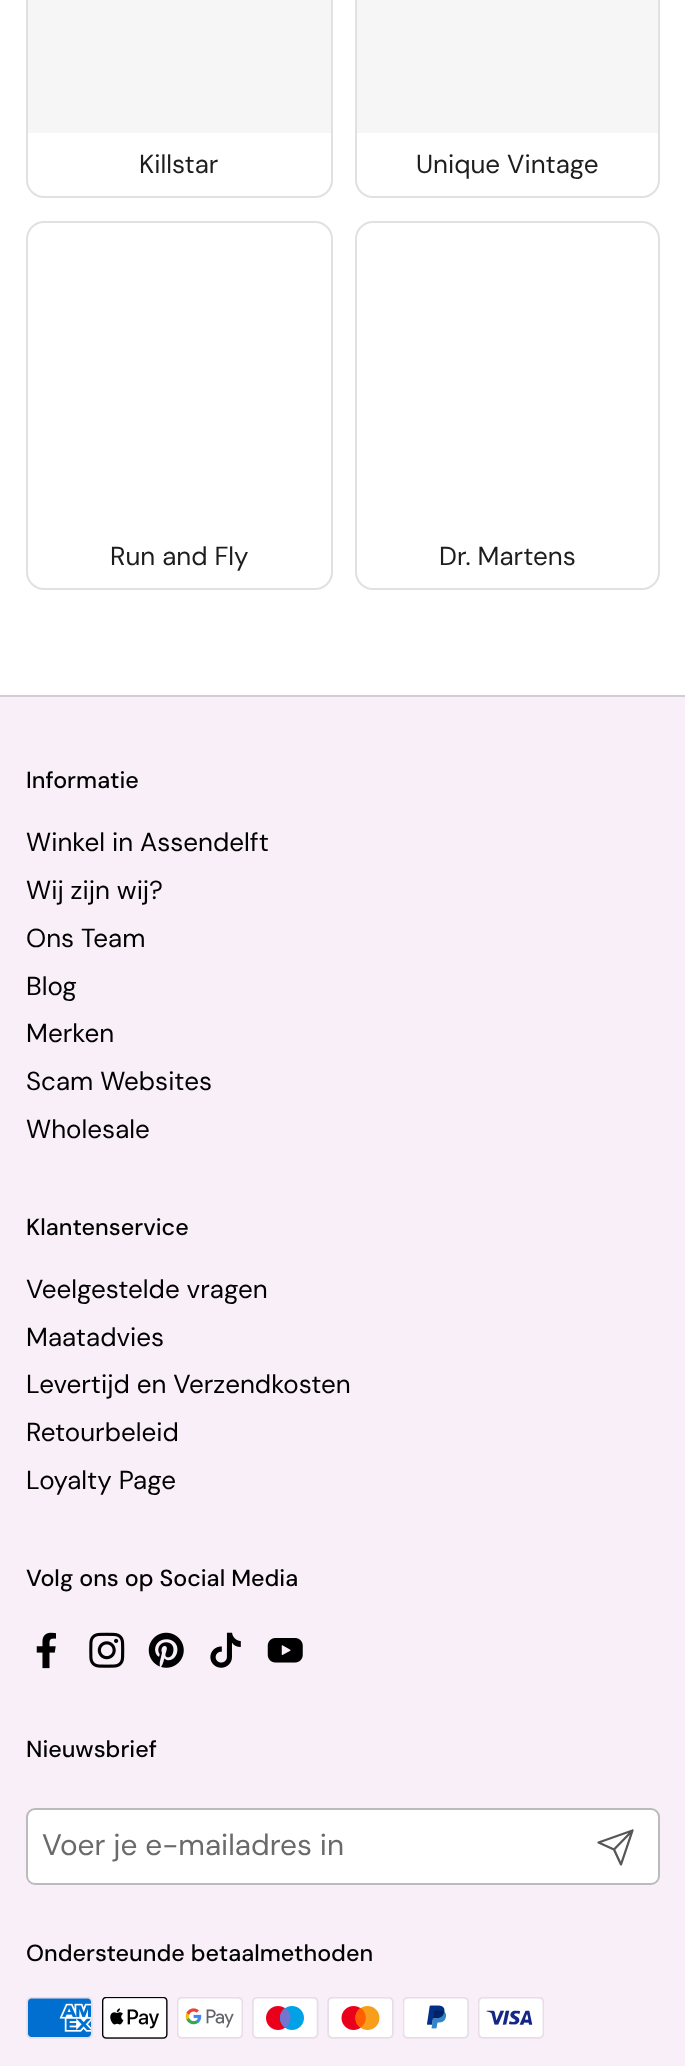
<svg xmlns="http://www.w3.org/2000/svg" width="685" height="2066">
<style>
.a{font:26px DM Sans;fill:#1d1d1d}
.b{font:500 23.3px DM Sans;fill:#000}
.c{font:26px DM Sans;fill:#000}
.d{font:29.75px 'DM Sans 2';fill:#6a6a6a}
</style>
<rect width="100%" height="100%" fill="#fff"/>
<rect fill="none" stroke="#e1e1e1" stroke-width="2" x="27" y="-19" width="305" height="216" rx="17"/>
<path fill="#f6f6f6" d="M28 0h303v133H28z"/>
<rect fill="none" stroke="#e1e1e1" stroke-width="2" x="356" y="-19" width="303" height="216" rx="17"/>
<path fill="#f6f6f6" d="M357 0h301v133H357z"/>
<rect fill="none" stroke="#e1e1e1" stroke-width="2" x="27" y="222" width="305" height="367" rx="17"/>
<rect fill="none" stroke="#e1e1e1" stroke-width="2" x="356" y="222" width="303" height="367" rx="17"/>
<path fill="#f9eff9" d="M0 697h685v1369H0z"/>
<path fill="#d4cbd4" d="M0 695h685v2H0z"/>
<image href="1.png" x="36" y="1632" width="20" height="37"/>
<image href="2.png" x="89" y="1632" width="36" height="36"/>
<image href="3.png" x="148" y="1632" width="36" height="36"/>
<image href="4.png" x="210" y="1632" width="31" height="36"/>
<image href="5.png" x="267" y="1638" width="36" height="25"/>
<rect fill="#fff" x="26" y="1808" width="634" height="77" rx="9"/>
<rect fill="none" stroke="#1d1d1d4d" stroke-width="2" x="27" y="1809" width="632" height="75" rx="8"/>
<path fill="none" stroke="#575757" stroke-width="2.3" stroke-linecap="round" stroke-linejoin="round" d="M632.5 1830.5l-18.5 19m18.5-19l-11.5 34l-7-15l-15.5-7z"/>
<image href="6.png" x="26" y="1997" width="67" height="42"/>
<image href="7.png" x="102" y="1997" width="66" height="42"/>
<image href="8.png" x="177" y="1997" width="66" height="42"/>
<image href="9.png" x="252" y="1997" width="67" height="42"/>
<image href="10.png" x="327" y="1997" width="67" height="42"/>
<image href="11.png" x="403" y="1997" width="66" height="42"/>
<image href="12.png" x="478" y="1997" width="66" height="42"/>
<text class="a" x="139" y="173">Killstar</text>
<text class="a" x="416" y="173">Unique Vintage</text>
<text class="a" x="110" y="565">Run and Fly</text>
<text class="a" x="439" y="565">Dr. Martens</text>
<text class="b" x="26" y="788">Informatie</text>
<text class="c" x="26" y="851">Winkel in Assendelft</text>
<text class="c" x="26" y="899">Wij zijn wij?</text>
<text class="c" x="26" y="947">Ons Team</text>
<text class="c" x="26" y="995">Blog</text>
<text class="c" x="26" y="1042">Merken</text>
<text class="c" x="26" y="1090">Scam Websites</text>
<text class="c" x="26" y="1138">Wholesale</text>
<text class="b" x="26" y="1235">Klantenservice</text>
<text class="c" x="26" y="1298">Veelgestelde vragen</text>
<text class="c" x="26" y="1346">Maatadvies</text>
<text class="c" x="26" y="1393">Levertijd en Verzendkosten</text>
<text class="c" x="26" y="1441">Retourbeleid</text>
<text class="c" x="26" y="1489">Loyalty Page</text>
<text class="b" x="26" y="1586">Volg ons op Social Media</text>
<text class="b" x="26" y="1757">Nieuwsbrief</text>
<text class="d" x="42" y="1855">Voer je e-mailadres in</text>
<text class="b" x="26" y="1961">Ondersteunde betaalmethoden</text>
</svg>
